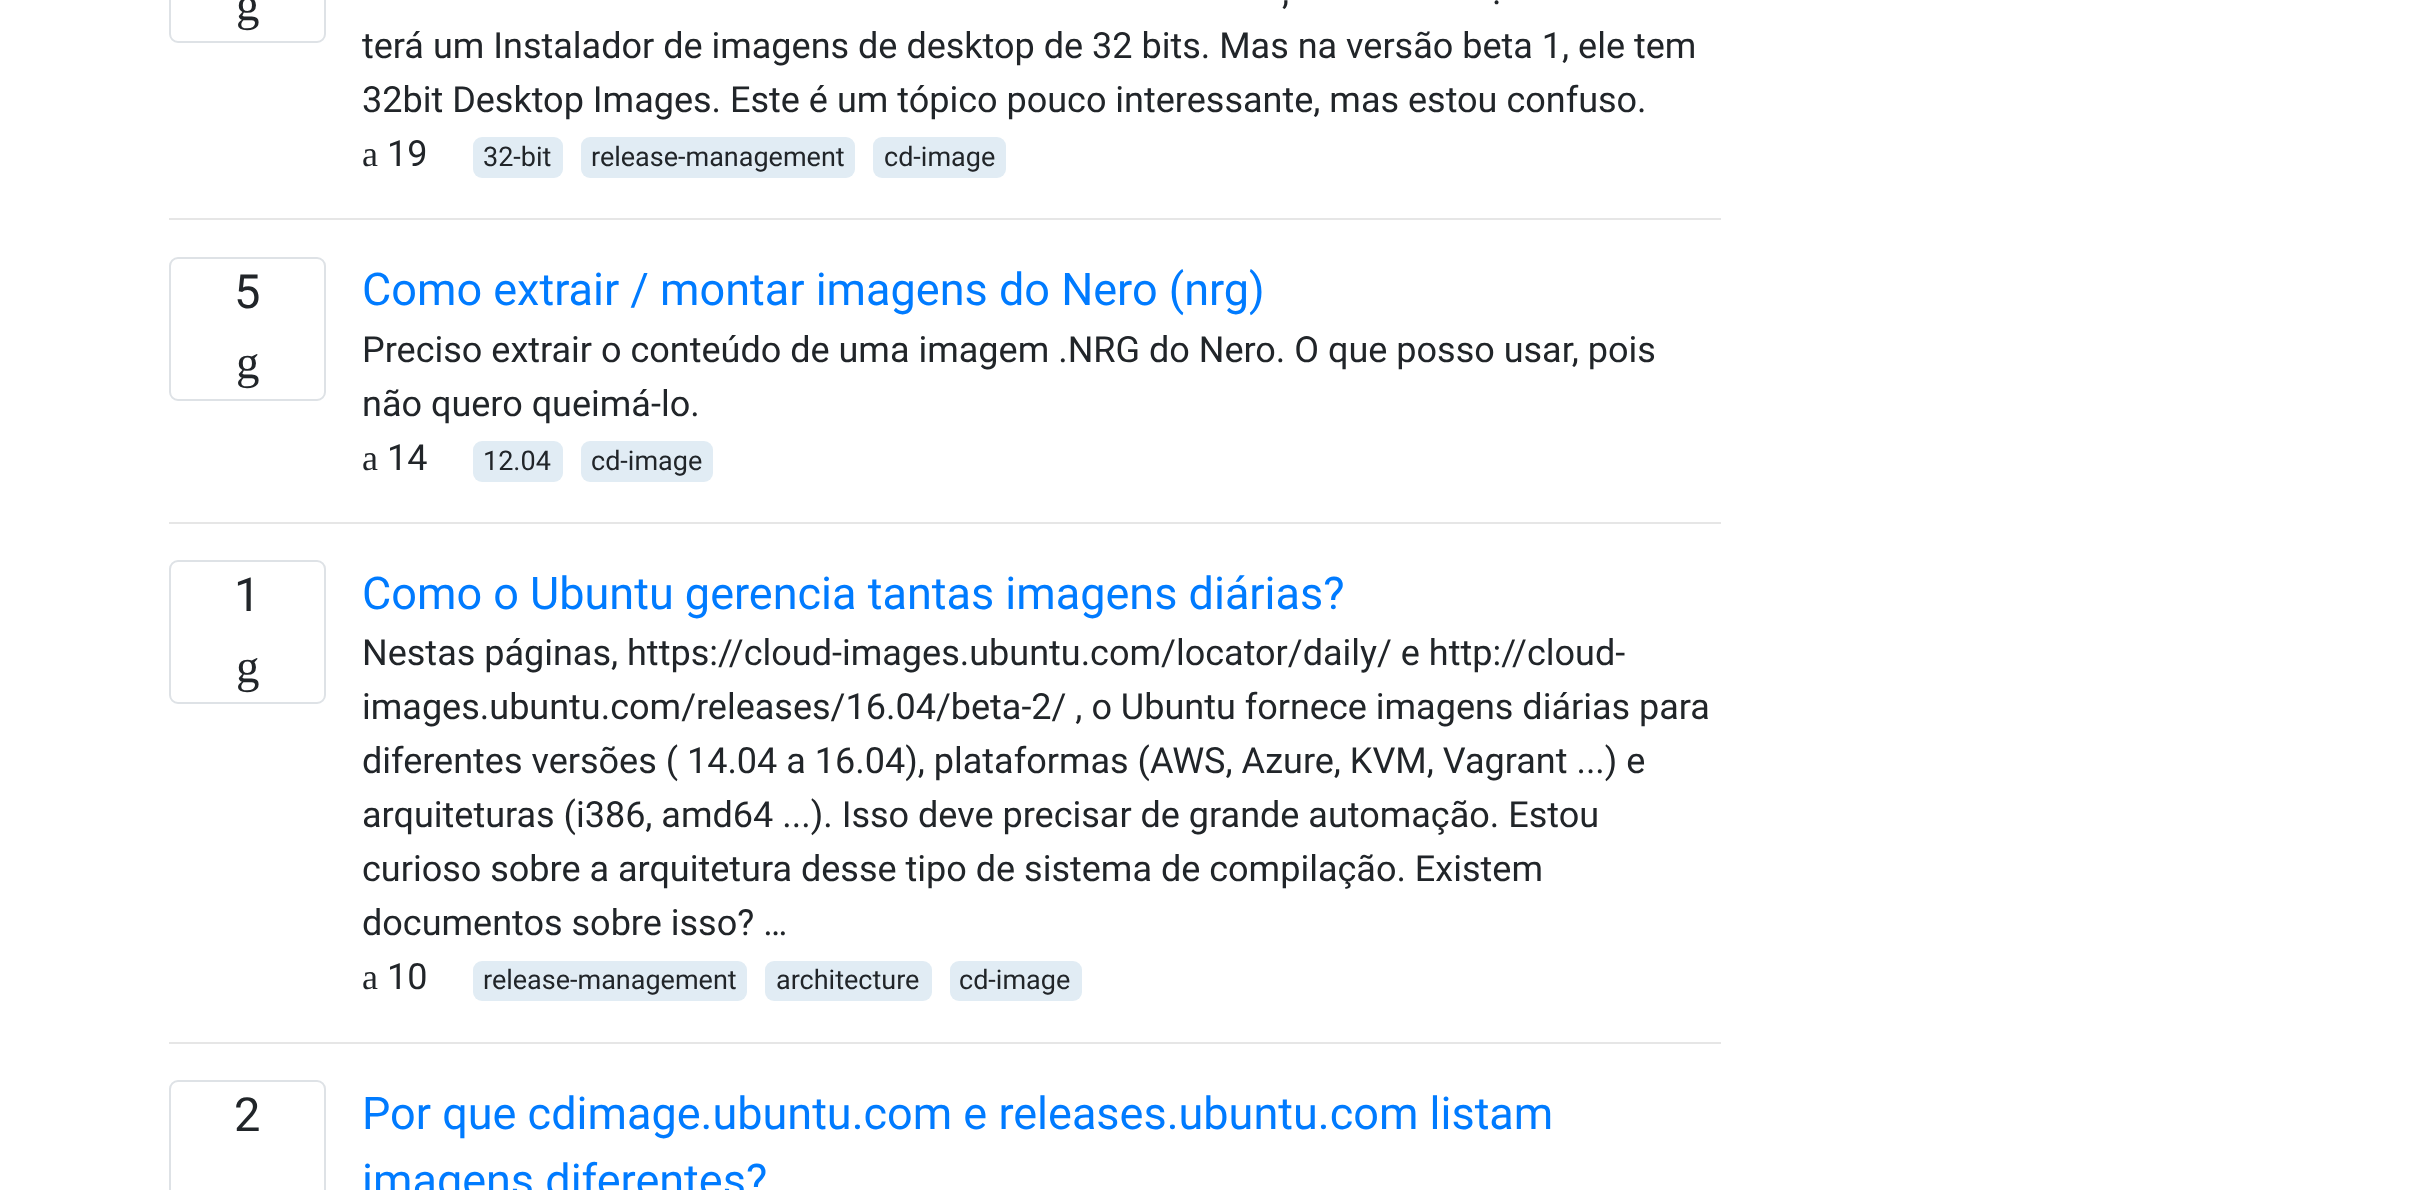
<svg xmlns="http://www.w3.org/2000/svg" width="2429" height="1190">
<style>
.a{font:47px Liberation Serif;fill:#212529}
.b{font:36px Roboto;fill:#212529}
.c{font:36px Liberation Serif;fill:#212529}
.d{font:27px Roboto;fill:#212529}
.e{font:47px Roboto;fill:#212529}
.f{font:45px Roboto;fill:#007bff}
</style>
<rect width="100%" height="100%" fill="#fff"/>
<rect fill="none" stroke="#dee2e6" stroke-width="2" x="170" y="-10" width="155" height="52" rx="8"/>
<rect fill="#e1ecf4" x="473" y="137" width="90" height="41" rx="9"/>
<rect fill="#e1ecf4" x="581" y="137" width="274" height="41" rx="9"/>
<rect fill="#e1ecf4" x="873" y="137" width="133" height="41" rx="9"/>
<path fill="#e6e6e6" d="M169 218h1552v2H169z"/>
<rect fill="none" stroke="#dee2e6" stroke-width="2" x="170" y="258" width="155" height="142" rx="8"/>
<rect fill="#e1ecf4" x="473" y="441" width="90" height="41" rx="9"/>
<rect fill="#e1ecf4" x="581" y="441" width="132" height="41" rx="9"/>
<path fill="#e6e6e6" d="M169 522h1552v2H169z"/>
<rect fill="none" stroke="#dee2e6" stroke-width="2" x="170" y="561" width="155" height="142" rx="8"/>
<rect fill="#e1ecf4" x="473" y="961" width="274" height="40" rx="9"/>
<rect fill="#e1ecf4" x="765" y="961" width="167" height="40" rx="9"/>
<rect fill="#e1ecf4" x="950" y="961" width="132" height="40" rx="9"/>
<path fill="#e6e6e6" d="M169 1042h1552v2H169z"/>
<rect fill="none" stroke="#dee2e6" stroke-width="2" x="170" y="1081" width="155" height="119" rx="8"/>
<text class="a" x="236" y="20">g</text>
<text class="b" x="1282" y="4">,</text>
<text class="b" x="1492" y="4">.</text>
<text class="b" x="362" y="58">terá um Instalador de imagens de desktop de 32 bits. Mas na versão beta 1, ele tem</text>
<text class="b" x="362" y="112">32bit Desktop Images. Este é um tópico pouco interessante, mas estou confuso.</text>
<text class="c" x="362" y="166">a</text>
<text class="b" x="387" y="166">19</text>
<text class="d" x="483" y="166">32-bit</text>
<text class="d" x="591" y="166">release-management</text>
<text class="d" x="884" y="166">cd-image</text>
<text class="e" x="234" y="308">5</text>
<text class="a" x="236" y="378">g</text>
<text class="f" x="362" y="305">Como extrair / montar imagens do Nero (nrg)</text>
<text class="b" x="362" y="362">Preciso extrair o conteúdo de uma imagem .NRG do Nero. O que posso usar, pois</text>
<text class="b" x="362" y="416">não quero queimá-lo.</text>
<text class="c" x="362" y="470">a</text>
<text class="b" x="387" y="470">14</text>
<text class="d" x="483" y="470">12.04</text>
<text class="d" x="591" y="470">cd-image</text>
<text class="e" x="234" y="611">1</text>
<text class="a" x="236" y="682">g</text>
<text class="f" x="362" y="609">Como o Ubuntu gerencia tantas imagens diárias?</text>
<text class="b" x="362" y="665">Nestas páginas, https://cloud-images.ubuntu.com/locator/daily/ e http://cloud-</text>
<text class="b" x="362" y="719">images.ubuntu.com/releases/16.04/beta-2/ , o Ubuntu fornece imagens diárias para</text>
<text class="b" x="362" y="773">diferentes versões ( 14.04 a 16.04), plataformas (AWS, Azure, KVM, Vagrant ...) e</text>
<text class="b" x="362" y="827">arquiteturas (i386, amd64 ...). Isso deve precisar de grande automação. Estou</text>
<text class="b" x="362" y="881">curioso sobre a arquitetura desse tipo de sistema de compilação. Existem</text>
<text class="b" x="362" y="935">documentos sobre isso? …</text>
<text class="c" x="362" y="989">a</text>
<text class="b" x="387" y="989">10</text>
<text class="d" x="483" y="989">release-management</text>
<text class="d" x="776" y="989">architecture</text>
<text class="d" x="959" y="989">cd-image</text>
<text class="e" x="234" y="1131">2</text>
<text class="f" x="362" y="1129">Por que cdimage.ubuntu.com e releases.ubuntu.com listam</text>
<text class="f" x="362" y="1196">imagens diferentes?</text>
</svg>
